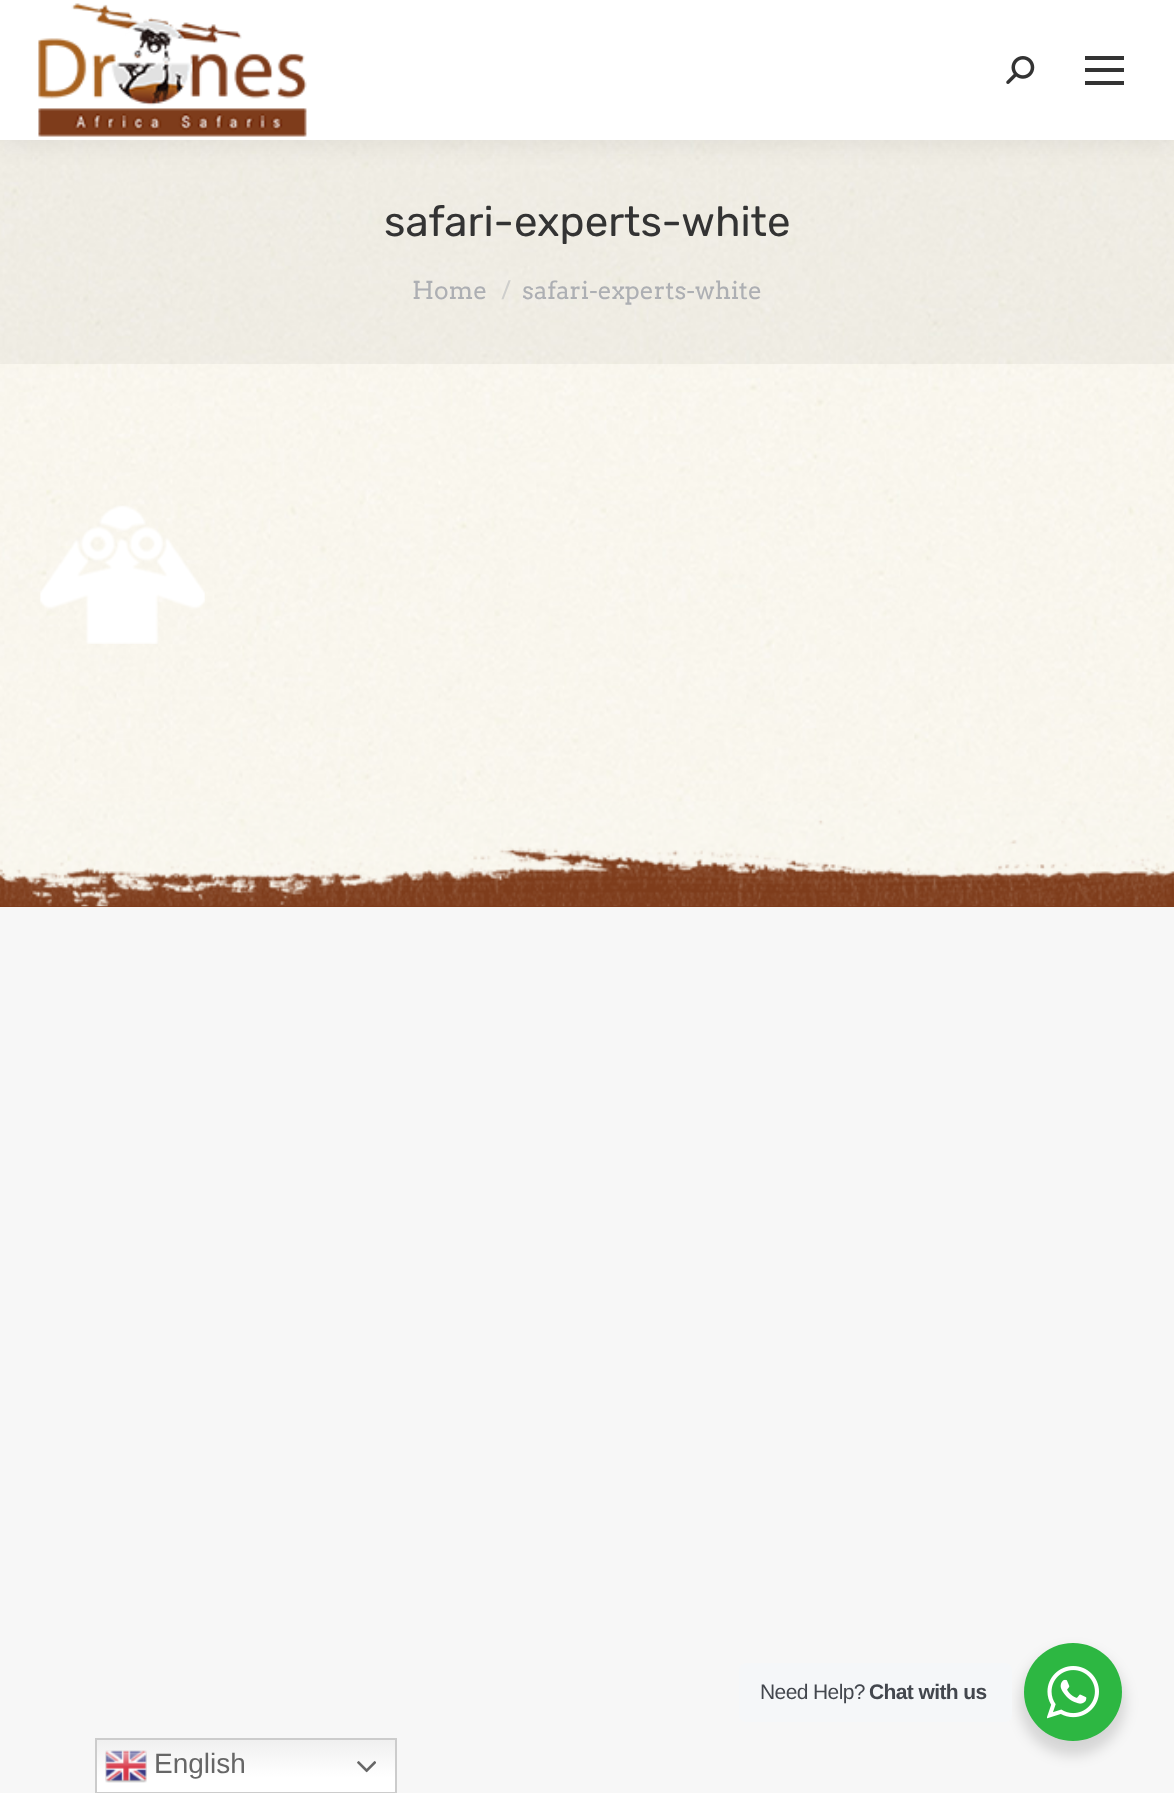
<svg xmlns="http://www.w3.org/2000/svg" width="1174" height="1793">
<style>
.a{font:42px Rubik;fill:#333}
.b{font:24.5px Arvo;fill:#adafb3}
.c{font:24.5px Arvo;fill:#cececc}
.d{font:21px Liberation Sans;letter-spacing:-0.6px;fill:#43474e}
.e{font:bold 21px Liberation Sans;letter-spacing:-0.6px;fill:#43474e}
.f{font:28px Liberation Sans;fill:#666}
</style>
<defs>
<linearGradient id="g1" gradientUnits="userSpaceOnUse" x1="246" y1="1738" x2="246" y2="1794"><stop offset="0" stop-color="#efefef"/><stop offset="0.7" stop-color="#fff"/></linearGradient>
</defs>
<rect width="100%" height="100%" fill="#f7f7f7"/>
<image href="1.png" x="0" y="140" width="1174" height="662"/>
<path fill="#0000000a" d="M0 140h1174v224H0z"/>
<path fill="#00000012" filter="blur(13px)" d="M-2 -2h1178v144H-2z"/>
<path fill="#fff" d="M0 0h1174v140H0z"/>
<image href="2.png" x="38" y="3" width="269" height="134"/>
<image href="3.png" x="1006" y="56" width="29" height="28"/>
<path fill="#333" d="M1085 56h39v4H1085z"/>
<path fill="#333" d="M1085 68h39v4H1085z"/>
<path fill="#333" d="M1085 81h39v4H1085z"/>
<image href="4.png" x="40" y="505" width="165" height="139"/>
<path fill="#7e3c1b" d="M0 802h1174v105H0z"/>
<image href="5.png" x="0" y="801" width="1174" height="106"/>
<rect fill="#00000024" filter="blur(7px)" x="1020" y="1650" width="105" height="105" rx="52.5"/>
<rect fill="#f5f7f9" x="739" y="1663" width="273" height="59" rx="7"/>
<circle fill="#2db742" cx="1073" cy="1692" r="49"/>
<image href="6.png" x="1047" y="1666" width="52" height="53"/>
<path fill="url(#g1)" d="M97 1740h298v52H97z"/>
<path fill="none" stroke="#ccc" stroke-width="2" d="M96 1739h300v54H96z"/>
<image href="7.png" x="105" y="1750" width="42" height="33"/>
<image href="8.png" x="357" y="1761" width="19" height="12"/>
<text class="a" x="384" y="236">safari-experts-white</text>
<text class="b" x="412" y="299">Home</text>
<text class="c" x="501" y="299">/</text>
<text class="b" x="522" y="299">safari-experts-white</text>
<text class="d" x="760" y="1699">Need Help?</text>
<text class="e" x="869" y="1699">Chat with us</text>
<text class="f" x="154" y="1773">English</text>
</svg>
